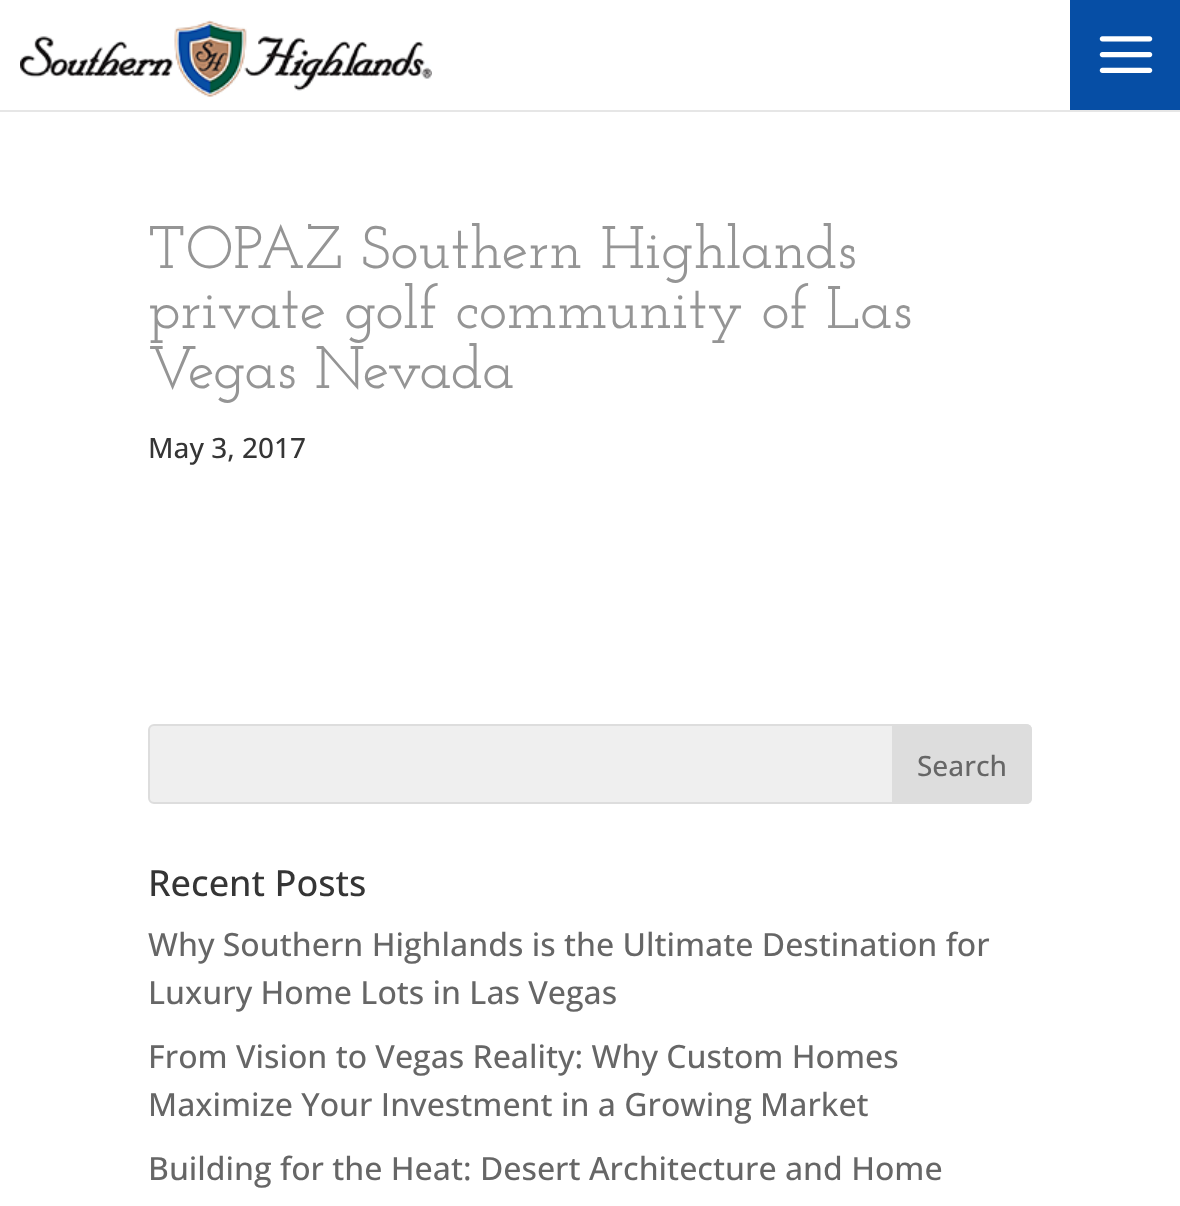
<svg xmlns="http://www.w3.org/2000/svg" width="1180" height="1206">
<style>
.a{font:500 60px Josefin Slab;fill:#959595}
.b{font:500 28px Open Sans;fill:#353535}
.c{font:500 28px Open Sans;fill:#666}
.d{font:500 36px Open Sans;fill:#353535}
.e{font:500 32px Open Sans;fill:#666}
</style>
<rect width="100%" height="100%" fill="#fff"/>
<path fill="#e6e6e6" d="M0 110h1180v2H0z"/>
<image href="1.png" x="20" y="20" width="412" height="77"/>
<path fill="#064ea5" d="M1070 0h110v110H1070z"/>
<image href="2.png" x="1099" y="36" width="54" height="37"/>
<rect fill="#efefef" stroke="#ddd" stroke-width="2" x="149" y="725" width="882" height="78" rx="5"/>
<path fill="#ddd" stroke="#ddd" stroke-width="2" d="M893 725h133c3 0 5 2 5 5v68c0 3-2 5-5 5h-133z"/>
<text class="a" x="148" y="268">TOPAZ Southern Highlands</text>
<text class="a" x="148" y="328">private golf community of Las</text>
<text class="a" x="148" y="388">Vegas Nevada</text>
<text class="b" x="148" y="458">May 3, 2017</text>
<text class="c" x="917" y="776">Search</text>
<text class="d" x="148" y="896">Recent Posts</text>
<text class="e" x="148" y="956">Why Southern Highlands is the Ultimate Destination for</text>
<text class="e" x="148" y="1004">Luxury Home Lots in Las Vegas</text>
<text class="e" x="148" y="1068">From Vision to Vegas Reality: Why Custom Homes</text>
<text class="e" x="148" y="1116">Maximize Your Investment in a Growing Market</text>
<text class="e" x="148" y="1180">Building for the Heat: Desert Architecture and Home</text>
</svg>
